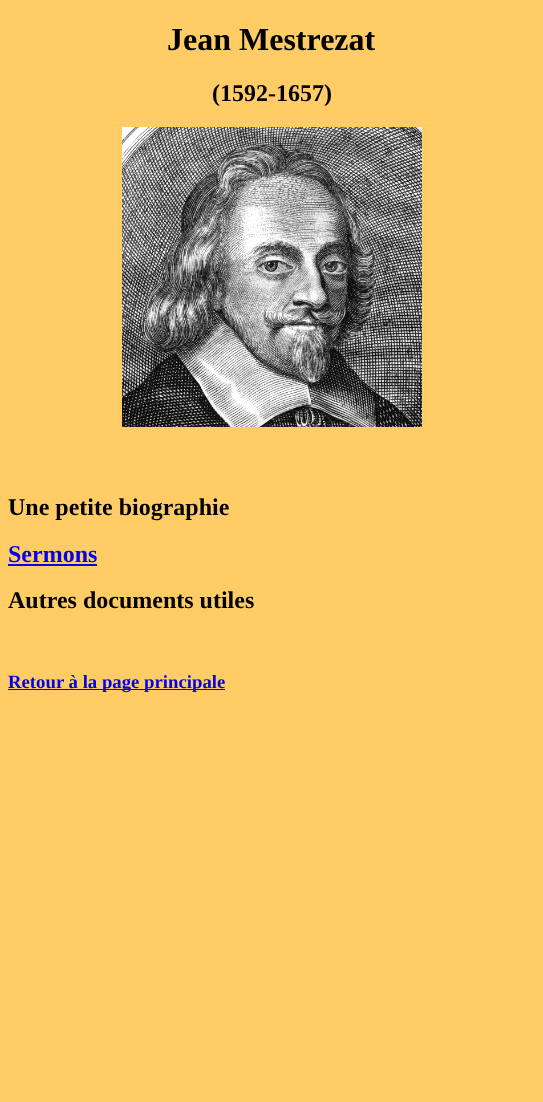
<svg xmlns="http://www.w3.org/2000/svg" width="543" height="1102">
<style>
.a{font:bold 32px Liberation Serif;fill:#000}
.b{font:bold 24px Liberation Serif;fill:#000}
.c{font:bold 24px Liberation Serif;fill:#00e}
.d{font:bold 18.75px Liberation Serif;fill:#00e}
</style>
<rect width="100%" height="100%" fill="#fc6"/>
<image href="1.png" x="122" y="127" width="300" height="300"/>
<path fill="#00e" d="M8 564h89v2H8z"/>
<path fill="#00e" d="M8 689h217v1H8z"/>
<text class="a" x="167" y="50">Jean Mestrezat</text>
<text class="b" x="212" y="101">(1592-1657)</text>
<text class="b" x="8" y="515">Une petite biographie</text>
<text class="c" x="8" y="562">Sermons</text>
<text class="b" x="8" y="608">Autres documents utiles</text>
<text class="d" x="8" y="688">Retour à la page principale</text>
</svg>
